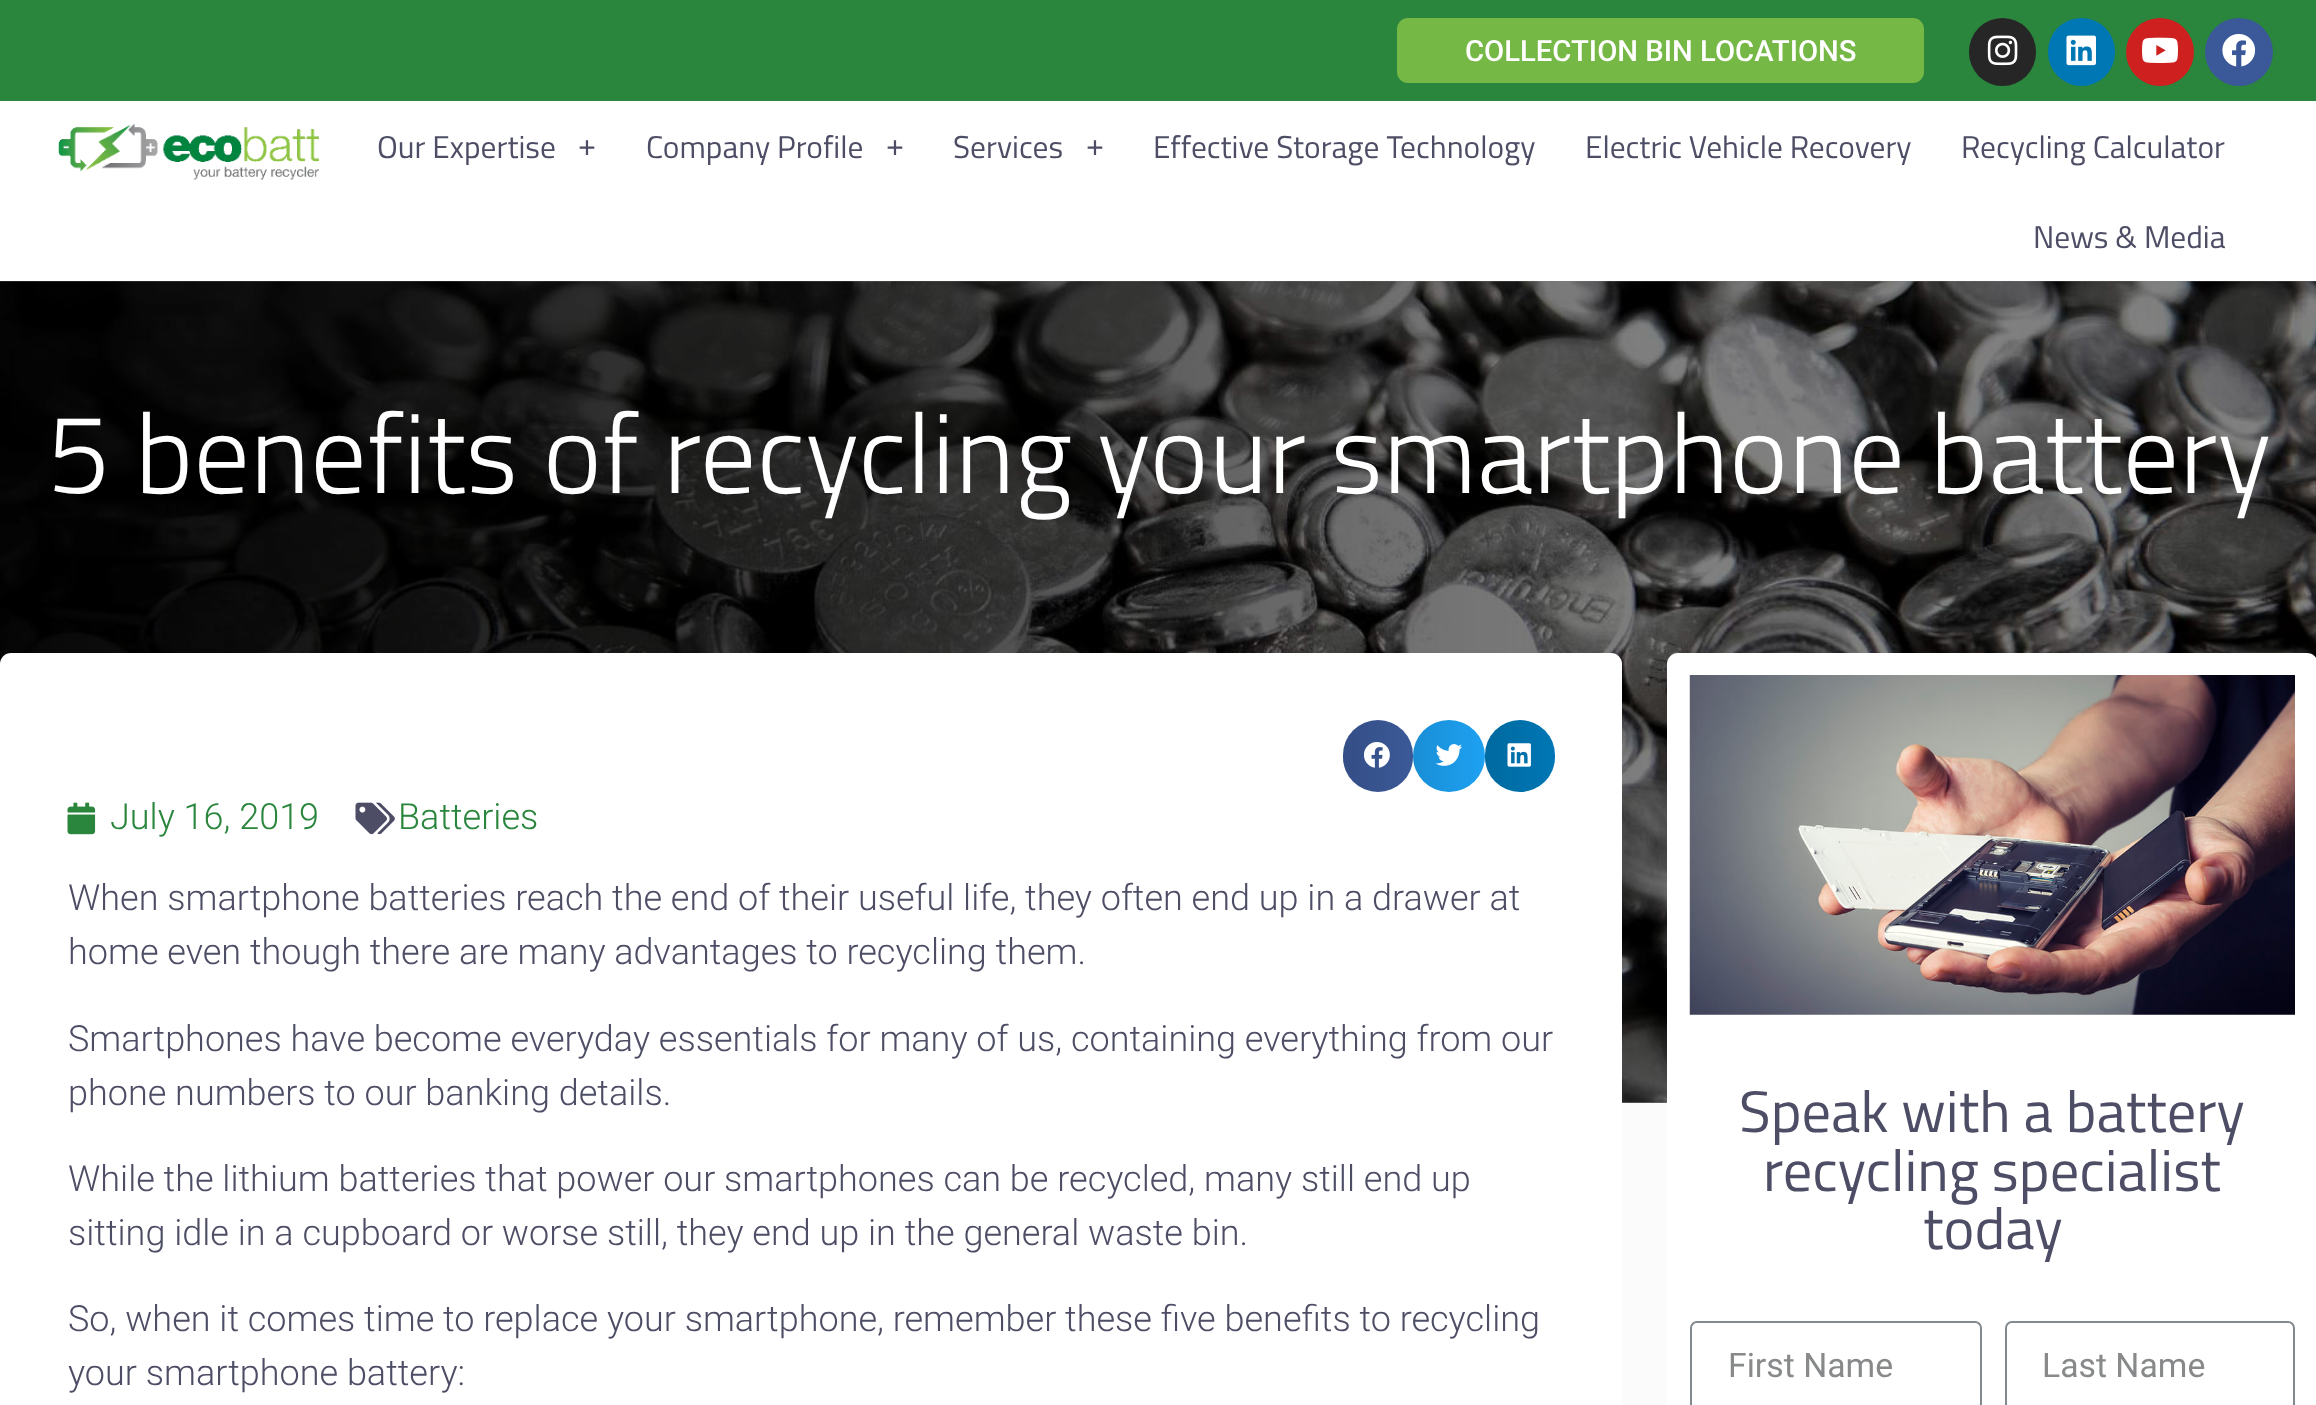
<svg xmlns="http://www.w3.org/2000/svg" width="2316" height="1405">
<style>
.a{font:500 29.25px Roboto;fill:#fff}
.b{font:31.5px Titillium Web;fill:#4d4d66}
.c{font:bold 31.5px Liberation Serif;fill:#4d4d66}
.d{font:300 112.5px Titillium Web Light;fill:#fff}
.e{font:300 36px Roboto;fill:#2a853d}
.f{font:300 36px Roboto;fill:#4d4d66}
.g{font:58.5px Titillium Web;fill:#4d4d66}
.h{font:33.75px Roboto;fill:#87898a}
</style>
<defs>
<linearGradient id="g1" gradientUnits="userSpaceOnUse" x1="1343" y1="756" x2="1413" y2="756"><stop offset="0" stop-color="#000" stop-opacity="0.12"/><stop offset="1" stop-color="#000" stop-opacity="0"/></linearGradient>
<linearGradient id="g2" gradientUnits="userSpaceOnUse" x1="1413" y1="756" x2="1485" y2="756"><stop offset="0" stop-color="#000" stop-opacity="0.12"/><stop offset="1" stop-color="#000" stop-opacity="0"/></linearGradient>
<linearGradient id="g3" gradientUnits="userSpaceOnUse" x1="1485" y1="756" x2="1555" y2="756"><stop offset="0" stop-color="#000" stop-opacity="0.12"/><stop offset="1" stop-color="#000" stop-opacity="0"/></linearGradient>
</defs>
<rect width="100%" height="100%" fill="#fbfbfb"/>
<path fill="#7e7e7e" d="M0 281h2316v822H0z"/>
<path fill="#2a853d" d="M0 0h2316v101H0z"/>
<rect fill="#75b846" x="1397" y="18" width="527" height="65" rx="11"/>
<rect fill="#262626" x="1969" y="18" width="67" height="68" rx="33.5"/>
<image href="1.png" x="1987" y="35" width="31" height="31"/>
<rect fill="#0077b5" x="2048" y="18" width="67" height="68" rx="33.5"/>
<image href="2.png" x="2066" y="35" width="30" height="31"/>
<circle fill="#cd201f" cx="2160" cy="52" r="34"/>
<image href="3.png" x="2142" y="37" width="36" height="26"/>
<circle fill="#3b5998" cx="2239" cy="52" r="34"/>
<image href="4.png" x="2222" y="34" width="34" height="33"/>
<path fill="#fff" d="M0 101h2316v180H0z"/>
<image href="5.png" x="58" y="123" width="261" height="57"/>
<image href="6.png" x="0" y="281" width="2316" height="822"/>
<rect fill="#fff" y="653" width="1622" height="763" rx="11"/>
<rect fill="#3b5998" x="1343" y="720" width="70" height="72" rx="35"/>
<rect fill="url(#g1)" x="1343" y="720" width="70" height="72" rx="35"/>
<image href="7.png" x="1363" y="742" width="27" height="26"/>
<circle fill="#1da1f2" cx="1449" cy="756" r="36"/>
<circle fill="url(#g2)" cx="1449" cy="756" r="36"/>
<image href="8.png" x="1435" y="744" width="28" height="22"/>
<rect fill="#0077b5" x="1485" y="720" width="70" height="72" rx="35"/>
<rect fill="url(#g3)" x="1485" y="720" width="70" height="72" rx="35"/>
<image href="9.png" x="1507" y="743" width="24" height="24"/>
<image href="10.png" x="67" y="802" width="29" height="33"/>
<image href="11.png" x="355" y="802" width="40" height="33"/>
<rect fill="#fff" x="1667" y="653" width="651" height="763" rx="11"/>
<image href="12.png" x="1689" y="675" width="606" height="340"/>
<rect fill="none" stroke="#818a91" stroke-width="2" x="1691" y="1322" width="290" height="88" rx="6"/>
<rect fill="none" stroke="#818a91" stroke-width="2" x="2006" y="1322" width="288" height="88" rx="6"/>
<text class="a" x="1465" y="61">COLLECTION BIN LOCATIONS</text>
<text class="b" x="377" y="158">Our Expertise</text>
<text class="c" x="578" y="158">+</text>
<text class="b" x="646" y="158">Company Profile</text>
<text class="c" x="886" y="158">+</text>
<text class="b" x="953" y="158">Services</text>
<text class="c" x="1086" y="158">+</text>
<text class="b" x="1153" y="158">Effective Storage Technology</text>
<text class="b" x="1585" y="158">Electric Vehicle Recovery</text>
<text class="b" x="1961" y="158">Recycling Calculator</text>
<text class="b" x="2033" y="248">News &amp; Media</text>
<text class="d" x="47" y="493">5 benefits of recycling your smartphone battery</text>
<text class="e" x="110" y="829">July 16, 2019</text>
<text class="e" x="398" y="829">Batteries</text>
<text class="f" x="68" y="910">When smartphone batteries reach the end of their useful life, they often end up in a drawer at</text>
<text class="f" x="68" y="964">home even though there are many advantages to recycling them.</text>
<text class="f" x="68" y="1051">Smartphones have become everyday essentials for many of us, containing everything from our</text>
<text class="f" x="68" y="1105">phone numbers to our banking details.</text>
<text class="f" x="68" y="1191">While the lithium batteries that power our smartphones can be recycled, many still end up</text>
<text class="f" x="68" y="1245">sitting idle in a cupboard or worse still, they end up in the general waste bin.</text>
<text class="f" x="68" y="1331">So, when it comes time to replace your smartphone, remember these five benefits to recycling</text>
<text class="f" x="68" y="1385">your smartphone battery:</text>
<text class="g" x="1739" y="1132">Speak with a battery</text>
<text class="g" x="1763" y="1191">recycling specialist</text>
<text class="g" x="1923" y="1249">today</text>
<text class="h" x="1728" y="1377">First Name</text>
<text class="h" x="2042" y="1377">Last Name</text>
</svg>
